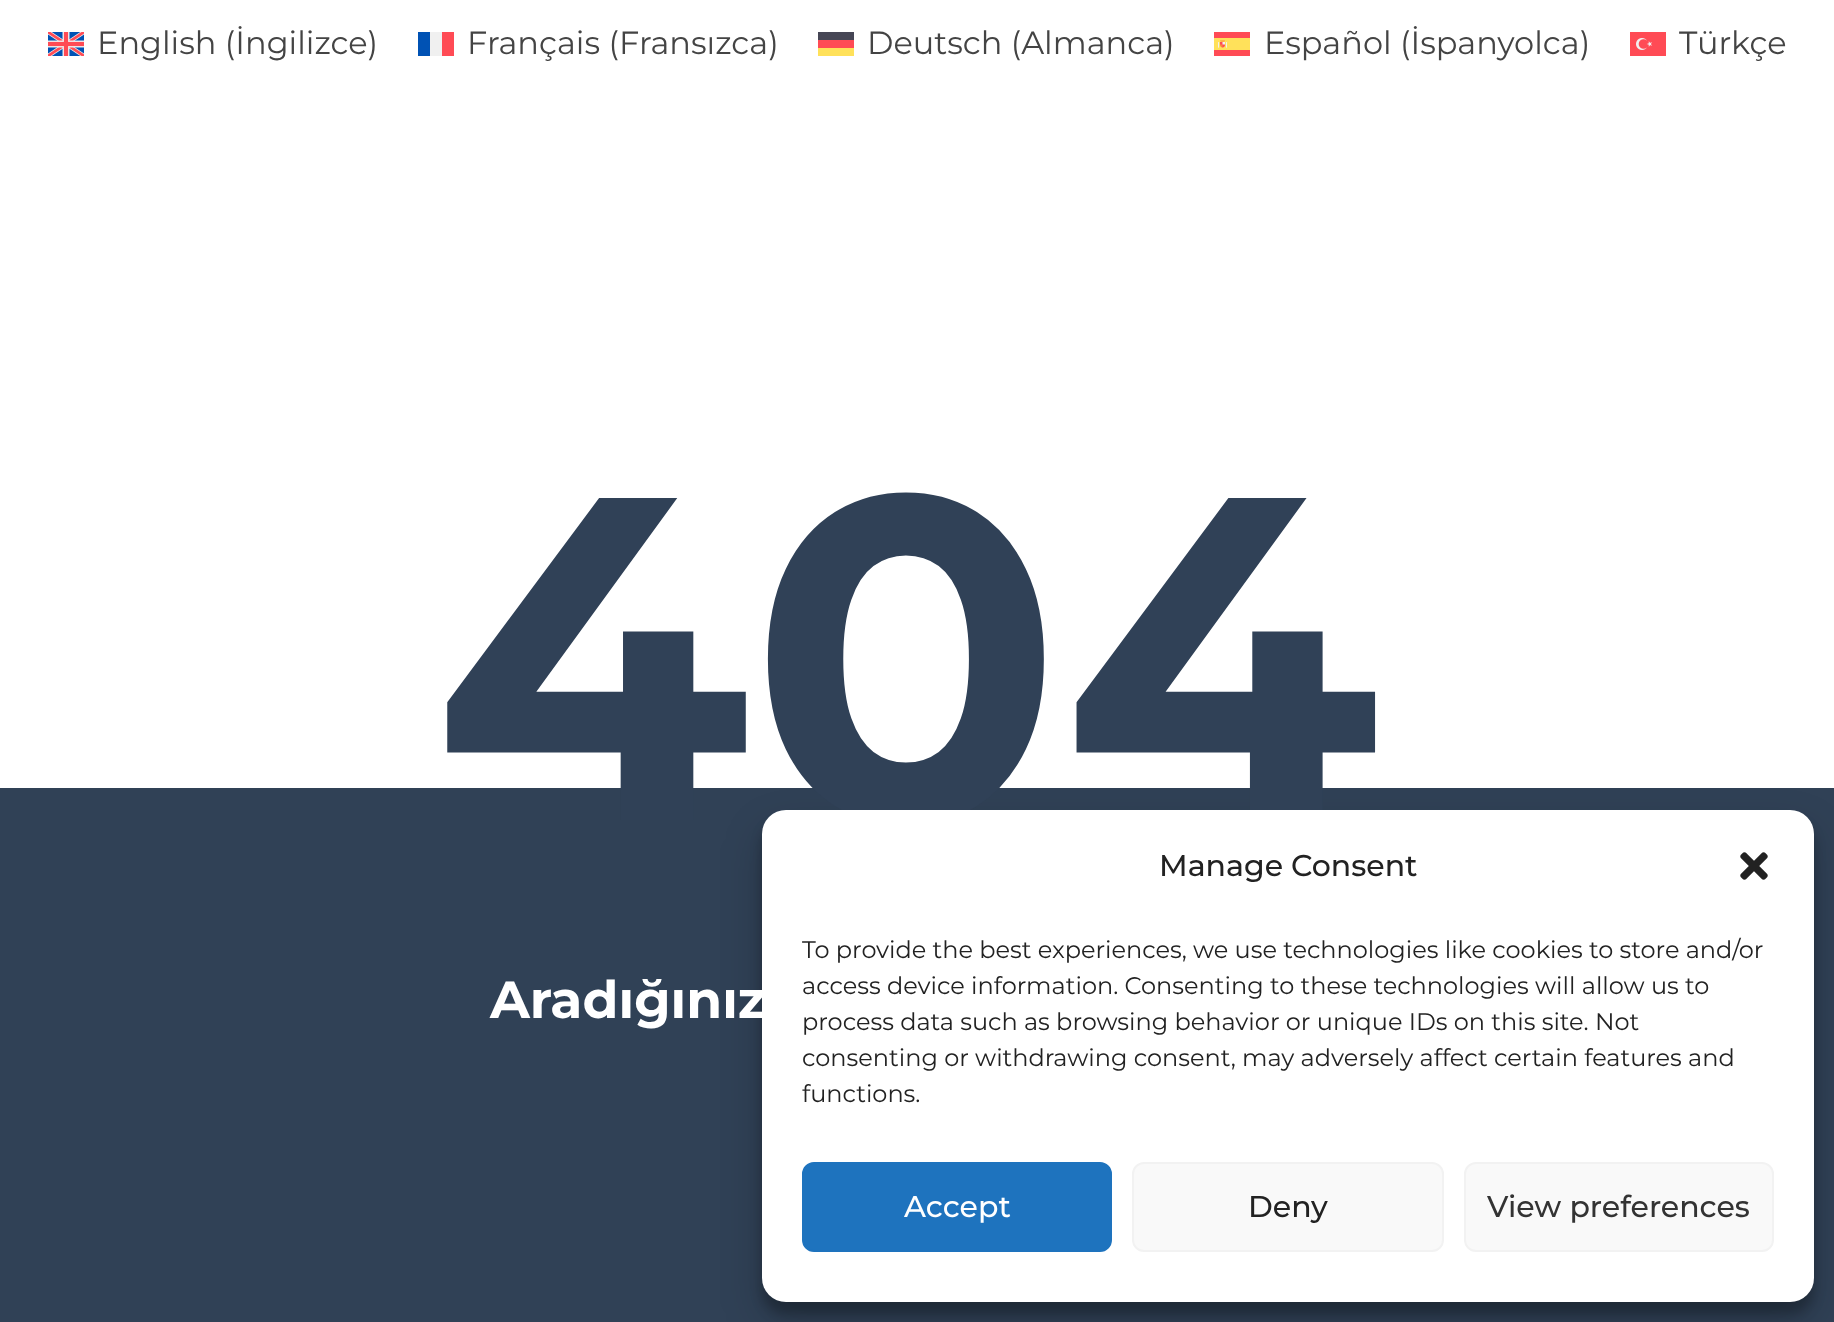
<svg xmlns="http://www.w3.org/2000/svg" width="1834" height="1322">
<style>
.a{font:32px Montserrat;fill:#444}
.b{font:bold 460px Montserrat;fill:#304157}
.c{font:bold 52px Montserrat;fill:#fff}
.d{font:500 30px Montserrat;fill:#222}
.e{font:24px Montserrat;fill:#222}
.f{font:500 30px Montserrat;fill:#fff}
.g{font:500 30px Montserrat;fill:#333}
</style>
<rect width="100%" height="100%" fill="#fff"/>
<image href="1.png" x="48" y="32" width="36" height="24"/>
<path fill="#0052b4" d="M418 32h12v24H418z"/>
<path fill="#f0f0f0" d="M430 32h12v24H430z"/>
<path fill="#ff4b55" d="M442 32h12v24H442z"/>
<path fill="#464655" d="M818 32h36v8H818z"/>
<path fill="#ff4b55" d="M818 40h36v8H818z"/>
<path fill="#ffe15a" d="M818 48h36v8H818z"/>
<image href="2.png" x="1214" y="32" width="36" height="24"/>
<image href="3.png" x="1630" y="32" width="36" height="24"/>
<path fill="#304156" d="M0 788h1834v534H0z"/>
<rect fill="#0000003b" filter="blur(6px)" x="762" y="822" width="1052" height="492" rx="24"/>
<rect fill="#00000030" filter="blur(20px)" x="762" y="830" width="1052" height="492" rx="24"/>
<text class="a" x="97" y="54">English (İngilizce)</text>
<text class="a" x="467" y="54">Français (Fransızca)</text>
<text class="a" x="867" y="54">Deutsch (Almanca)</text>
<text class="a" x="1264" y="54">Español (İspanyolca)</text>
<text class="a" x="1679" y="54">Türkçe</text>
<text class="b" x="433" y="820">404</text>
<text class="c" x="490" y="1018">Aradığınız</text>
<rect fill="#fff" x="762" y="810" width="1052" height="492" rx="24"/>
<text class="d" x="1159" y="876">Manage Consent</text>
<image href="4.png" x="1740" y="852" width="28" height="28"/>
<text class="e" x="802" y="958">To provide the best experiences, we use technologies like cookies to store and/or</text>
<text class="e" x="802" y="994">access device information. Consenting to these technologies will allow us to</text>
<text class="e" x="802" y="1030">process data such as browsing behavior or unique IDs on this site. Not</text>
<text class="e" x="802" y="1066">consenting or withdrawing consent, may adversely affect certain features and</text>
<text class="e" x="802" y="1102">functions.</text>
<rect fill="#1e73be" stroke="#1e73be" stroke-width="2" x="803" y="1163" width="308" height="88" rx="11"/>
<text class="f" x="904" y="1217">Accept</text>
<rect fill="#f9f9f9" stroke="#f2f2f2" stroke-width="2" x="1133" y="1163" width="310" height="88" rx="11"/>
<text class="d" x="1248" y="1217">Deny</text>
<rect fill="#f9f9f9" stroke="#f2f2f2" stroke-width="2" x="1465" y="1163" width="308" height="88" rx="11"/>
<text class="g" x="1487" y="1217">View preferences</text>
</svg>
